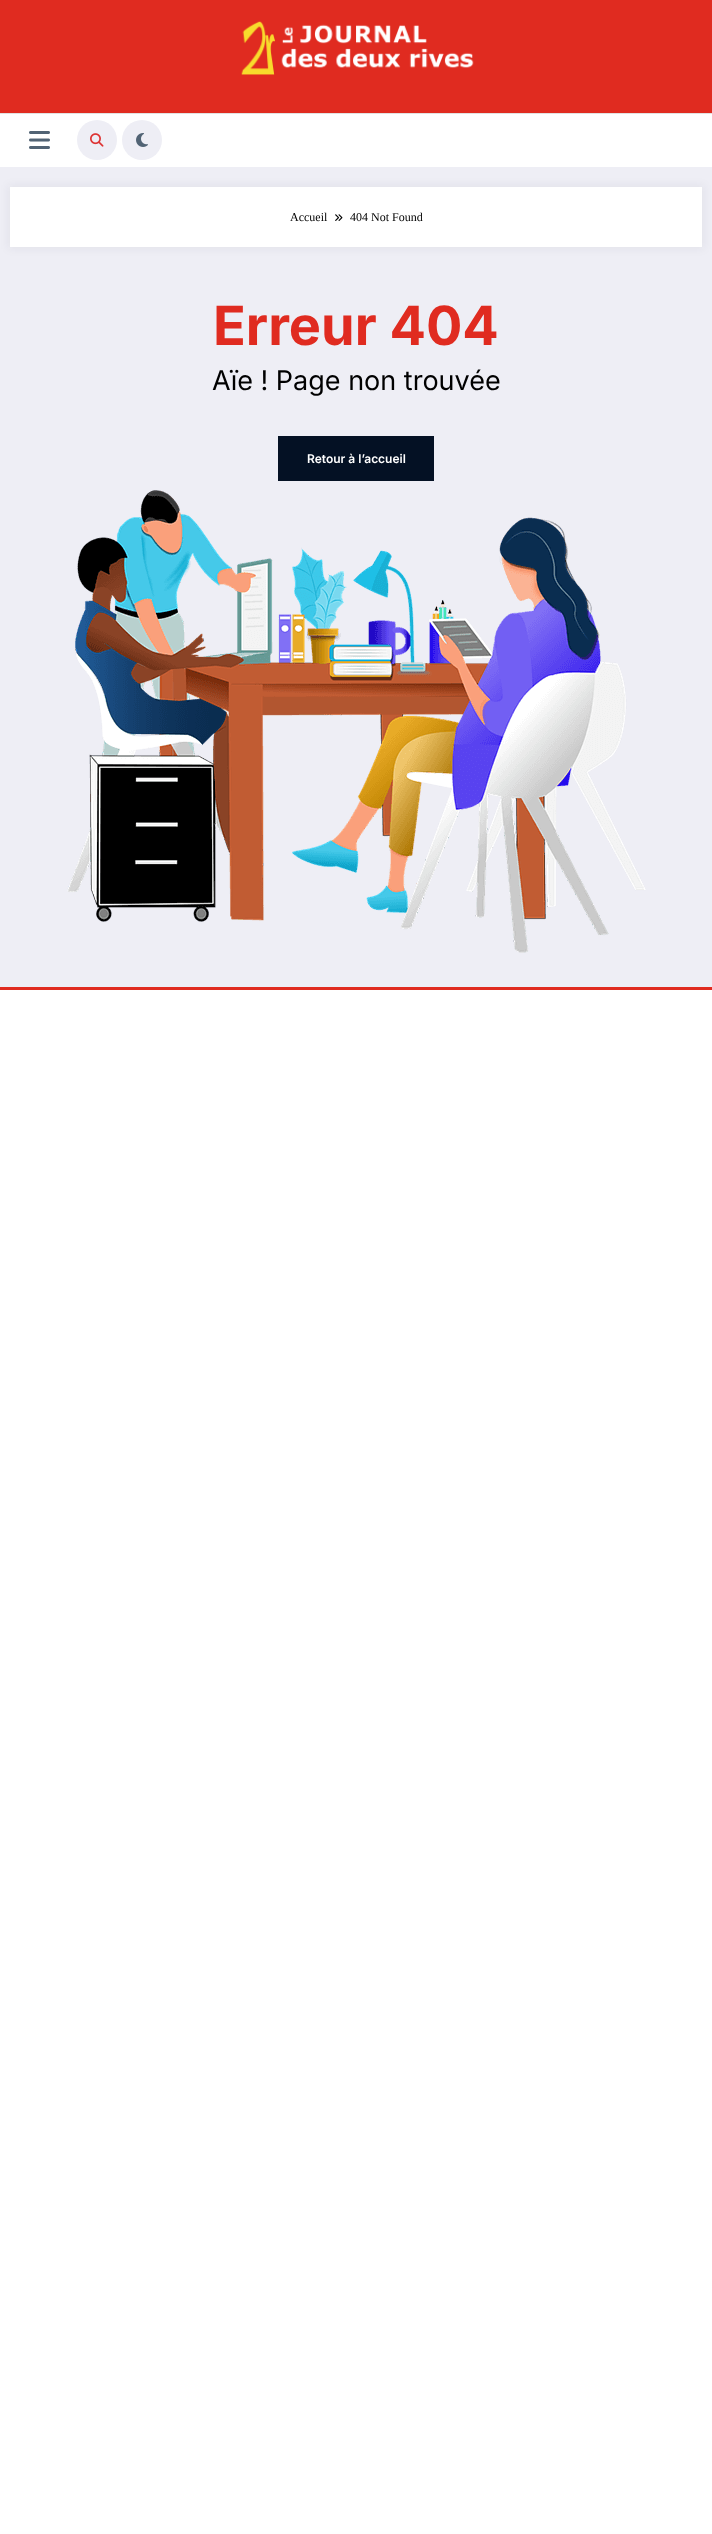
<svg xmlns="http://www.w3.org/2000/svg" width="712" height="2534">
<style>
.a{font:12px Liberation Serif;fill:#000}
.b{font:bold 54px Inter;fill:#e02b20}
.c{font:27px Inter;fill:#000}
.d{font:600 12px Inter;fill:#fff}
</style>
<rect width="100%" height="100%" fill="#fff"/>
<path fill="#eeeef5" d="M0 167h712v820H0z"/>
<path fill="#e02b20" d="M0 0h712v113H0z"/>
<image href="1.png" x="241" y="21" width="233" height="54"/>
<path fill="#e1e1e1" d="M0 113h712v1H0z"/>
<image href="2.png" x="29" y="131" width="21" height="18"/>
<circle fill="#eeeef5" cx="97" cy="140" r="20"/>
<image href="3.png" x="90" y="133" width="14" height="14"/>
<circle fill="#eeeef5" cx="142" cy="140" r="20"/>
<image href="4.png" x="136" y="133" width="12" height="14"/>
<path fill="#1717230d" filter="blur(4px)" d="M8 185h696v64H8z"/>
<path fill="#fff" d="M10 187h692v60H10z"/>
<image href="5.png" x="335" y="214" width="8" height="7"/>
<path fill="#041124" d="M278 436h156v45H278z"/>
<image href="6.png" x="67" y="490" width="579" height="463"/>
<path fill="#e02b20" d="M0 987h712v3H0z"/>
<text class="a" x="290" y="221">Accueil</text>
<text class="a" x="350" y="221">404 Not Found</text>
<text class="b" x="213" y="345">Erreur 404</text>
<text class="c" x="212" y="390">Aïe ! Page non trouvée</text>
<text class="d" x="307" y="463">Retour à l’accueil</text>
</svg>
